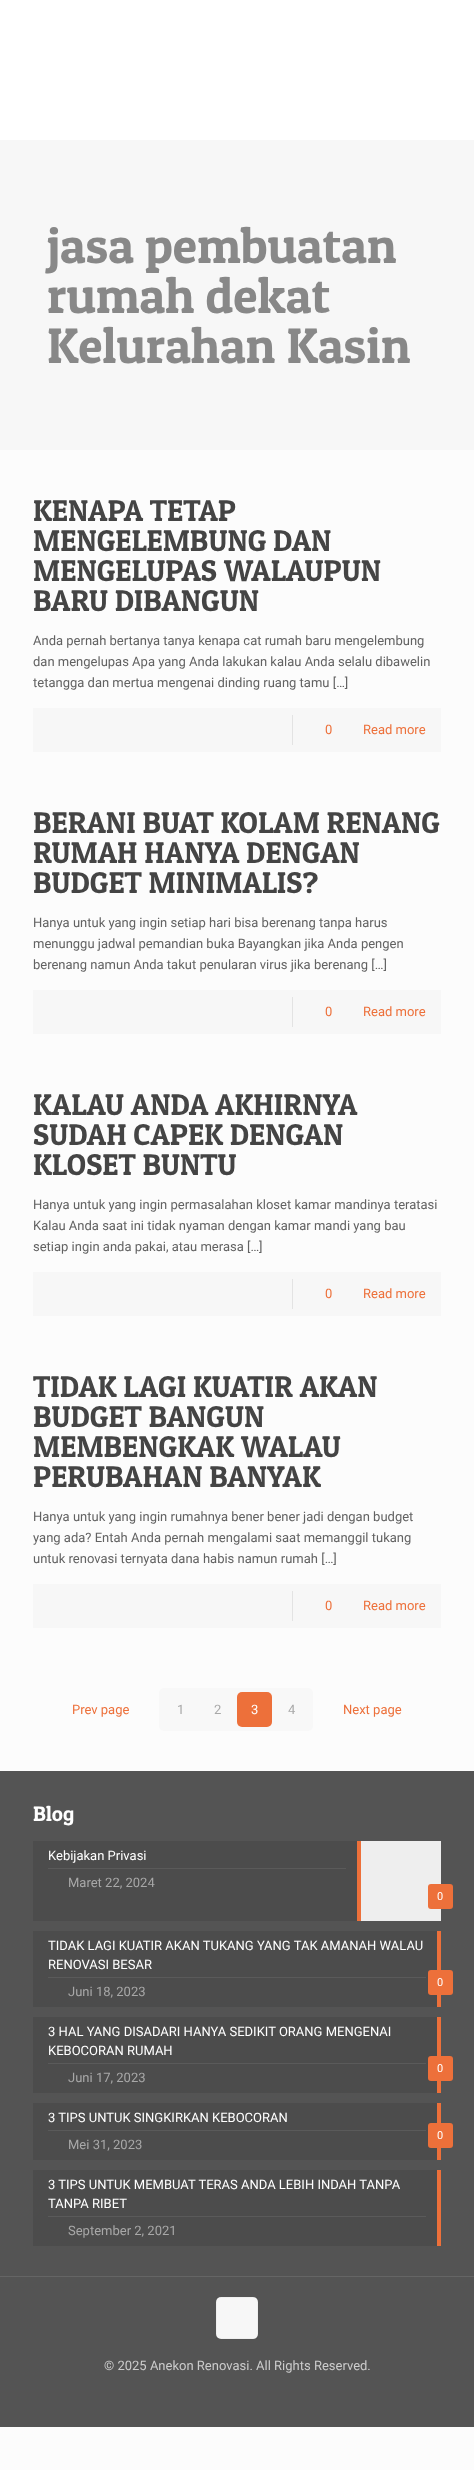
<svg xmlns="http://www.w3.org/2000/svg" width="474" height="2470">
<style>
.a{font:50px Patua One;fill:#888}
.b{font:30px Patua One;fill:#444}
.c{font:13px Roboto;fill:#626262}
.d{font:13px Roboto;fill:#ed703a}
.e{font:13px Roboto;fill:#a8a8a8}
.f{font:13px Roboto;fill:#fff}
.g{font:21px Patua One;fill:#fff}
.h{font:11px Roboto;fill:#fff}
.i{font:13px Roboto;fill:#ccc}
</style>
<rect width="100%" height="100%" fill="#fcfcfc"/>
<path fill="#fff" d="M0 0h474v140H0z"/>
<path fill="#f7f7f7" d="M0 140h474v310H0z"/>
<path fill="#f7f7f7" d="M33 708h408v44H33z"/>
<path fill="#e3e3e3" d="M292 715h1v30H292z"/>
<path fill="#f7f7f7" d="M33 990h408v44H33z"/>
<path fill="#e3e3e3" d="M292 997h1v30H292z"/>
<path fill="#f7f7f7" d="M33 1272h408v44H33z"/>
<path fill="#e3e3e3" d="M292 1279h1v30H292z"/>
<path fill="#f7f7f7" d="M33 1584h408v44H33z"/>
<path fill="#e3e3e3" d="M292 1591h1v30H292z"/>
<rect fill="#f8f8f8" x="159" y="1688" width="154" height="43" rx="5"/>
<rect fill="#ed703a" x="237" y="1692" width="35" height="35" rx="5"/>
<path fill="#545454" d="M0 1771h474v656H0z"/>
<path fill="#4c4c4c" d="M33 1841h324v80H33z"/>
<path fill="#5a5a5a" d="M48 1868h298v1H48z"/>
<path fill="#ed703a" d="M357 1841h4v80H357z"/>
<path fill="#eee" d="M361 1841h80v80H361z"/>
<rect fill="#ed703a" x="428" y="1884" width="25" height="25" rx="3"/>
<path fill="#4c4c4c" d="M33 1931h404v76H33z"/>
<path fill="#5a5a5a" d="M48 1977h378v1H48z"/>
<path fill="#ed703a" d="M437 1931h4v76H437z"/>
<rect fill="#ed703a" x="428" y="1970" width="25" height="25" rx="3"/>
<path fill="#4c4c4c" d="M33 2017h404v76H33z"/>
<path fill="#5a5a5a" d="M48 2063h378v1H48z"/>
<path fill="#ed703a" d="M437 2017h4v76H437z"/>
<rect fill="#ed703a" x="428" y="2056" width="25" height="25" rx="3"/>
<path fill="#4c4c4c" d="M33 2103h404v57H33z"/>
<path fill="#5a5a5a" d="M48 2130h378v1H48z"/>
<path fill="#ed703a" d="M437 2103h4v57H437z"/>
<rect fill="#ed703a" x="428" y="2123" width="25" height="25" rx="3"/>
<path fill="#4c4c4c" d="M33 2170h404v76H33z"/>
<path fill="#5a5a5a" d="M48 2216h378v1H48z"/>
<path fill="#ed703a" d="M437 2170h4v76H437z"/>
<path fill="#656565" d="M0 2276h474v1H0z"/>
<rect fill="#f7f7f7" x="216" y="2297" width="42" height="42" rx="5"/>
<path fill="none" stroke="#00000008" d="M216.5 2297.5h41v41H216.5z"/>
<text class="a" x="47" y="263">jasa pembuatan</text>
<text class="a" x="47" y="313">rumah dekat</text>
<text class="a" x="47" y="363">Kelurahan Kasin</text>
<text class="b" x="33" y="521">KENAPA TETAP</text>
<text class="b" x="33" y="551">MENGELEMBUNG DAN</text>
<text class="b" x="33" y="581">MENGELUPAS WALAUPUN</text>
<text class="b" x="33" y="611">BARU DIBANGUN</text>
<text class="c" x="33" y="645">Anda pernah bertanya tanya kenapa cat rumah baru mengelembung</text>
<text class="c" x="33" y="666">dan mengelupas Apa yang Anda lakukan kalau Anda selalu dibawelin</text>
<text class="c" x="33" y="687">tetangga dan mertua mengenai dinding ruang tamu […]</text>
<text class="d" x="325" y="734">0</text>
<text class="d" x="363" y="734">Read more</text>
<text class="b" x="33" y="833">BERANI BUAT KOLAM RENANG</text>
<text class="b" x="33" y="863">RUMAH HANYA DENGAN</text>
<text class="b" x="33" y="893">BUDGET MINIMALIS?</text>
<text class="c" x="33" y="927">Hanya untuk yang ingin setiap hari bisa berenang tanpa harus</text>
<text class="c" x="33" y="948">menunggu jadwal pemandian buka Bayangkan jika Anda pengen</text>
<text class="c" x="33" y="969">berenang namun Anda takut penularan virus jika berenang […]</text>
<text class="d" x="325" y="1016">0</text>
<text class="d" x="363" y="1016">Read more</text>
<text class="b" x="33" y="1115">KALAU ANDA AKHIRNYA</text>
<text class="b" x="33" y="1145">SUDAH CAPEK DENGAN</text>
<text class="b" x="33" y="1175">KLOSET BUNTU</text>
<text class="c" x="33" y="1209">Hanya untuk yang ingin permasalahan kloset kamar mandinya teratasi</text>
<text class="c" x="33" y="1230">Kalau Anda saat ini tidak nyaman dengan kamar mandi yang bau</text>
<text class="c" x="33" y="1251">setiap ingin anda pakai, atau merasa […]</text>
<text class="d" x="325" y="1298">0</text>
<text class="d" x="363" y="1298">Read more</text>
<text class="b" x="33" y="1397">TIDAK LAGI KUATIR AKAN</text>
<text class="b" x="33" y="1427">BUDGET BANGUN</text>
<text class="b" x="33" y="1457">MEMBENGKAK WALAU</text>
<text class="b" x="33" y="1487">PERUBAHAN BANYAK</text>
<text class="c" x="33" y="1521">Hanya untuk yang ingin rumahnya bener bener jadi dengan budget</text>
<text class="c" x="33" y="1542">yang ada? Entah Anda pernah mengalami saat memanggil tukang</text>
<text class="c" x="33" y="1563">untuk renovasi ternyata dana habis namun rumah […]</text>
<text class="d" x="325" y="1610">0</text>
<text class="d" x="363" y="1610">Read more</text>
<text class="d" x="72" y="1714">Prev page</text>
<text class="e" x="177" y="1714">1</text>
<text class="e" x="214" y="1714">2</text>
<text class="f" x="251" y="1714">3</text>
<text class="e" x="288" y="1714">4</text>
<text class="d" x="343" y="1714">Next page</text>
<text class="g" x="33" y="1821">Blog</text>
<text class="f" x="48" y="1860">Kebijakan Privasi</text>
<text class="e" x="68" y="1887">Maret 22, 2024</text>
<text class="h" x="437" y="1900">0</text>
<text class="f" x="48" y="1950">TIDAK LAGI KUATIR AKAN TUKANG YANG TAK AMANAH WALAU</text>
<text class="f" x="48" y="1969">RENOVASI BESAR</text>
<text class="e" x="68" y="1996">Juni 18, 2023</text>
<text class="h" x="437" y="1986">0</text>
<text class="f" x="48" y="2036">3 HAL YANG DISADARI HANYA SEDIKIT ORANG MENGENAI</text>
<text class="f" x="48" y="2055">KEBOCORAN RUMAH</text>
<text class="e" x="68" y="2082">Juni 17, 2023</text>
<text class="h" x="437" y="2072">0</text>
<text class="f" x="48" y="2122">3 TIPS UNTUK SINGKIRKAN KEBOCORAN</text>
<text class="e" x="68" y="2149">Mei 31, 2023</text>
<text class="h" x="437" y="2139">0</text>
<text class="f" x="48" y="2189">3 TIPS UNTUK MEMBUAT TERAS ANDA LEBIH INDAH TANPA</text>
<text class="f" x="48" y="2208">TANPA RIBET</text>
<text class="e" x="68" y="2235">September 2, 2021</text>
<text class="i" x="104" y="2370">© 2025 Anekon Renovasi. All Rights Reserved.</text>
</svg>
